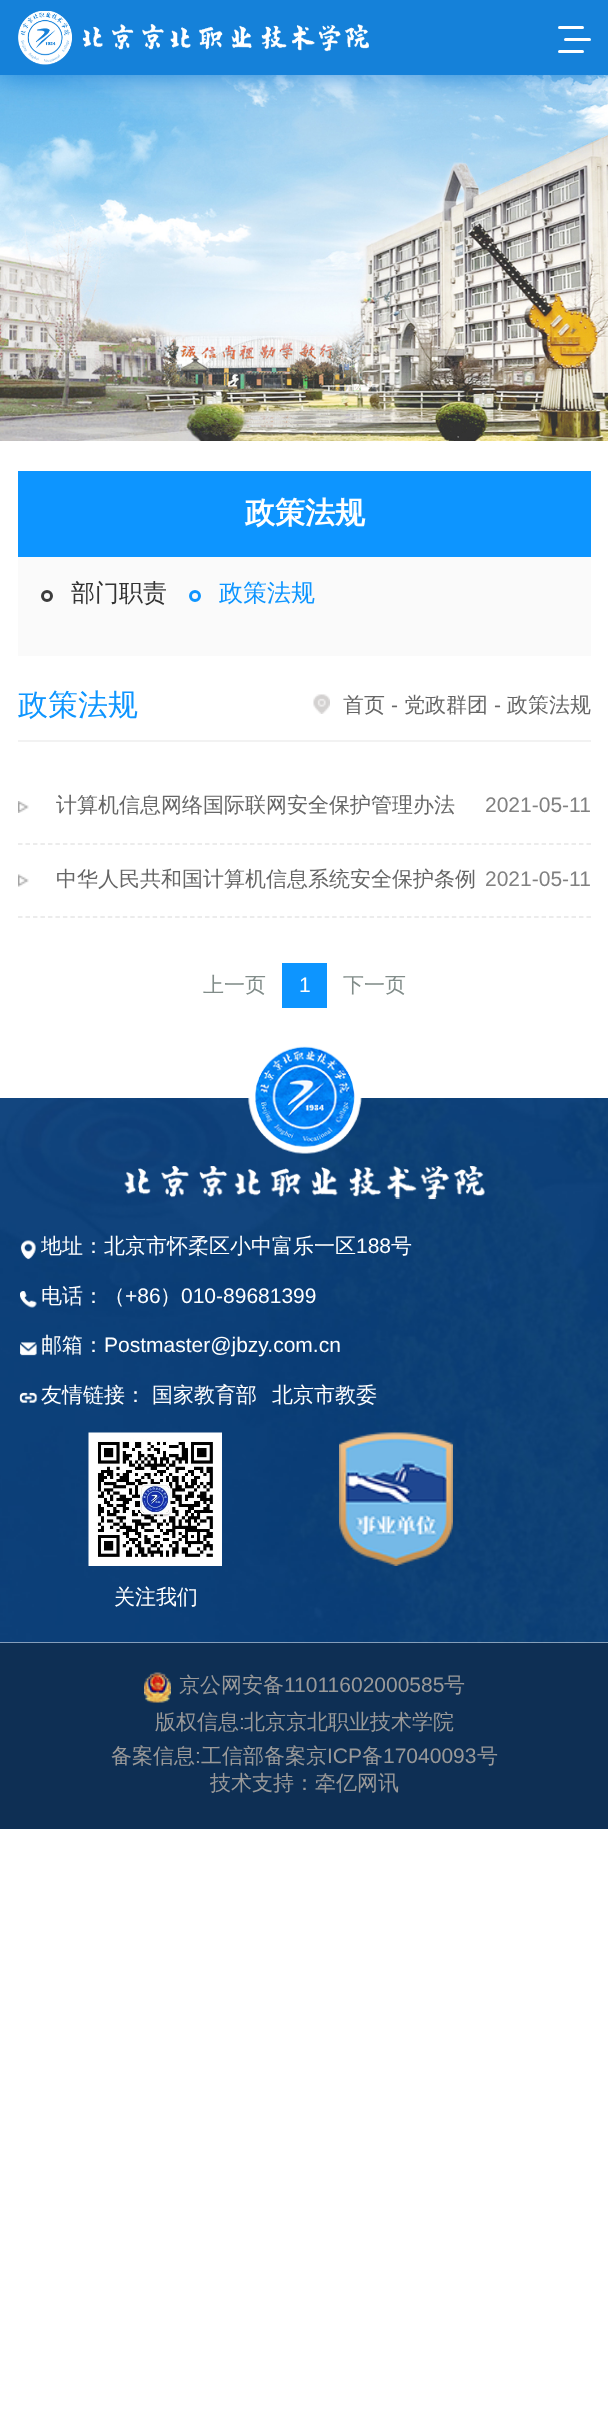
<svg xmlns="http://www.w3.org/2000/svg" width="608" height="2433">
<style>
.a{font:bold 30px WenQuanYi Zen Hei;fill:#fff}
.b{font:500 24px WenQuanYi Zen Hei;fill:#333}
.c{font:500 24px WenQuanYi Zen Hei;fill:#0d95ff}
.d{font:500 30px WenQuanYi Zen Hei;fill:#0d95ff}
.e{font:500 21px WenQuanYi Zen Hei;fill:#666}
.f{font:21px Liberation Sans;fill:#666}
.g{font:21px Liberation Sans;fill:#808080}
.h{font:500 21px WenQuanYi Zen Hei;fill:#818c89}
.i{font:21px Liberation Sans;fill:#fff}
.j{font:500 21px WenQuanYi Zen Hei;fill:#fff}
.k{font:500 21px WenQuanYi Zen Hei;fill:#999}
.l{font:21px Liberation Sans;fill:#999}
</style>
<rect width="100%" height="100%" fill="#fff"/>
<image href="2.png" x="0" y="75" width="608" height="366"/>
<path fill="#1581d9" filter="blur(15px)" d="M0 0h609v75H0z"/>
<path fill="#1581d9" d="M0 0h608v75H0z"/>
<image href="1.png" x="18" y="11" width="351" height="54"/>
<rect fill="#fff" x="558" y="26" width="26" height="3" rx="1.5"/>
<rect fill="#fff" x="564" y="38" width="27" height="3" rx="1.5"/>
<rect fill="#fff" x="558" y="50" width="26" height="3" rx="1.5"/>
<path fill="#fafafa" d="M18 557h573v99H18z"/>
<path fill="#0d95ff" d="M18 471h573v86H18z"/>
<circle fill="none" stroke="#3c3c3c" stroke-width="3" cx="47" cy="596" r="4.5"/>
<circle fill="none" stroke="#0d95ff" stroke-width="3" cx="195" cy="596" r="4.5"/>
<path fill="#f2f2f2" d="M18 740h573v2H18z"/>
<image href="3.png" x="313" y="694" width="17" height="20"/>
<path fill="none" stroke="#e6e6e6" stroke-width="1.5" stroke-dasharray="4.5 2.98" d="M18 844h573"/>
<image href="4.png" x="18" y="801" width="11" height="12"/>
<path fill="none" stroke="#e6e6e6" stroke-width="1.5" stroke-dasharray="4.5 2.98" d="M18 917h573"/>
<image href="5.png" x="18" y="874" width="11" height="13"/>
<path fill="#0d95ff" d="M282 963h45v45H282z"/>
<image href="6.png" x="0" y="1098" width="608" height="545"/>
<image href="7.png" x="124" y="1046" width="361" height="154"/>
<image href="8.png" x="20" y="1240" width="16" height="20"/>
<image href="9.png" x="20" y="1291" width="17" height="17"/>
<image href="10.png" x="20" y="1342" width="17" height="14"/>
<image href="11.png" x="19" y="1392" width="19" height="11"/>
<image href="12.png" x="339" y="1432" width="114" height="134"/>
<image href="13.png" x="88" y="1432" width="134" height="134"/>
<path fill="#0e2f54" d="M0 1643h608v186H0z"/>
<image href="14.png" x="144" y="1672" width="27" height="31"/>
<text class="a" x="245" y="523">政策法规</text>
<text class="b" x="71" y="601">部门职责</text>
<text class="c" x="219" y="601">政策法规</text>
<text class="d" x="18" y="715">政策法规</text>
<text class="e" x="343" y="712">首页</text>
<text class="f" x="391" y="712">-</text>
<text class="e" x="404" y="712">党政群团</text>
<text class="f" x="494" y="712">-</text>
<text class="e" x="507" y="712">政策法规</text>
<text class="e" x="56" y="812">计算机信息网络国际联网安全保护管理办法</text>
<text class="g" x="485" y="812">2021-05-11</text>
<text class="e" x="56" y="886">中华人民共和国计算机信息系统安全保护条例</text>
<text class="g" x="485" y="886">2021-05-11</text>
<text class="h" x="203" y="992">上一页</text>
<text class="i" x="299" y="992">1</text>
<text class="h" x="343" y="992">下一页</text>
<text class="j" x="41" y="1253">地址：北京市怀柔区小中富乐一区</text>
<text class="i" x="356" y="1253">188</text>
<text class="j" x="391" y="1253">号</text>
<text class="j" x="41" y="1303">电话：（</text>
<text class="i" x="125" y="1303">+86</text>
<text class="j" x="160" y="1303">）</text>
<text class="i" x="181" y="1303">010-89681399</text>
<text class="j" x="41" y="1352">邮箱：</text>
<text class="i" x="104" y="1352">Postmaster@jbzy.com.cn</text>
<text class="j" x="41" y="1402">友情链接：</text>
<text class="j" x="152" y="1402">国家教育部</text>
<text class="j" x="272" y="1402">北京市教委</text>
<text class="j" x="114" y="1604">关注我们</text>
<text class="k" x="179" y="1692">京公网安备</text>
<text class="l" x="284" y="1692">11011602000585</text>
<text class="k" x="444" y="1692">号</text>
<text class="k" x="155" y="1729">版权信息</text>
<text class="l" x="239" y="1729">:</text>
<text class="k" x="244" y="1729">北京京北职业技术学院</text>
<text class="k" x="111" y="1763">备案信息</text>
<text class="l" x="195" y="1763">:</text>
<text class="k" x="201" y="1763">工信部备案京</text>
<text class="l" x="327" y="1763">ICP</text>
<text class="k" x="362" y="1763">备</text>
<text class="l" x="383" y="1763">17040093</text>
<text class="k" x="477" y="1763">号</text>
<text class="k" x="210" y="1790">技术支持：牵亿网讯</text>
</svg>
